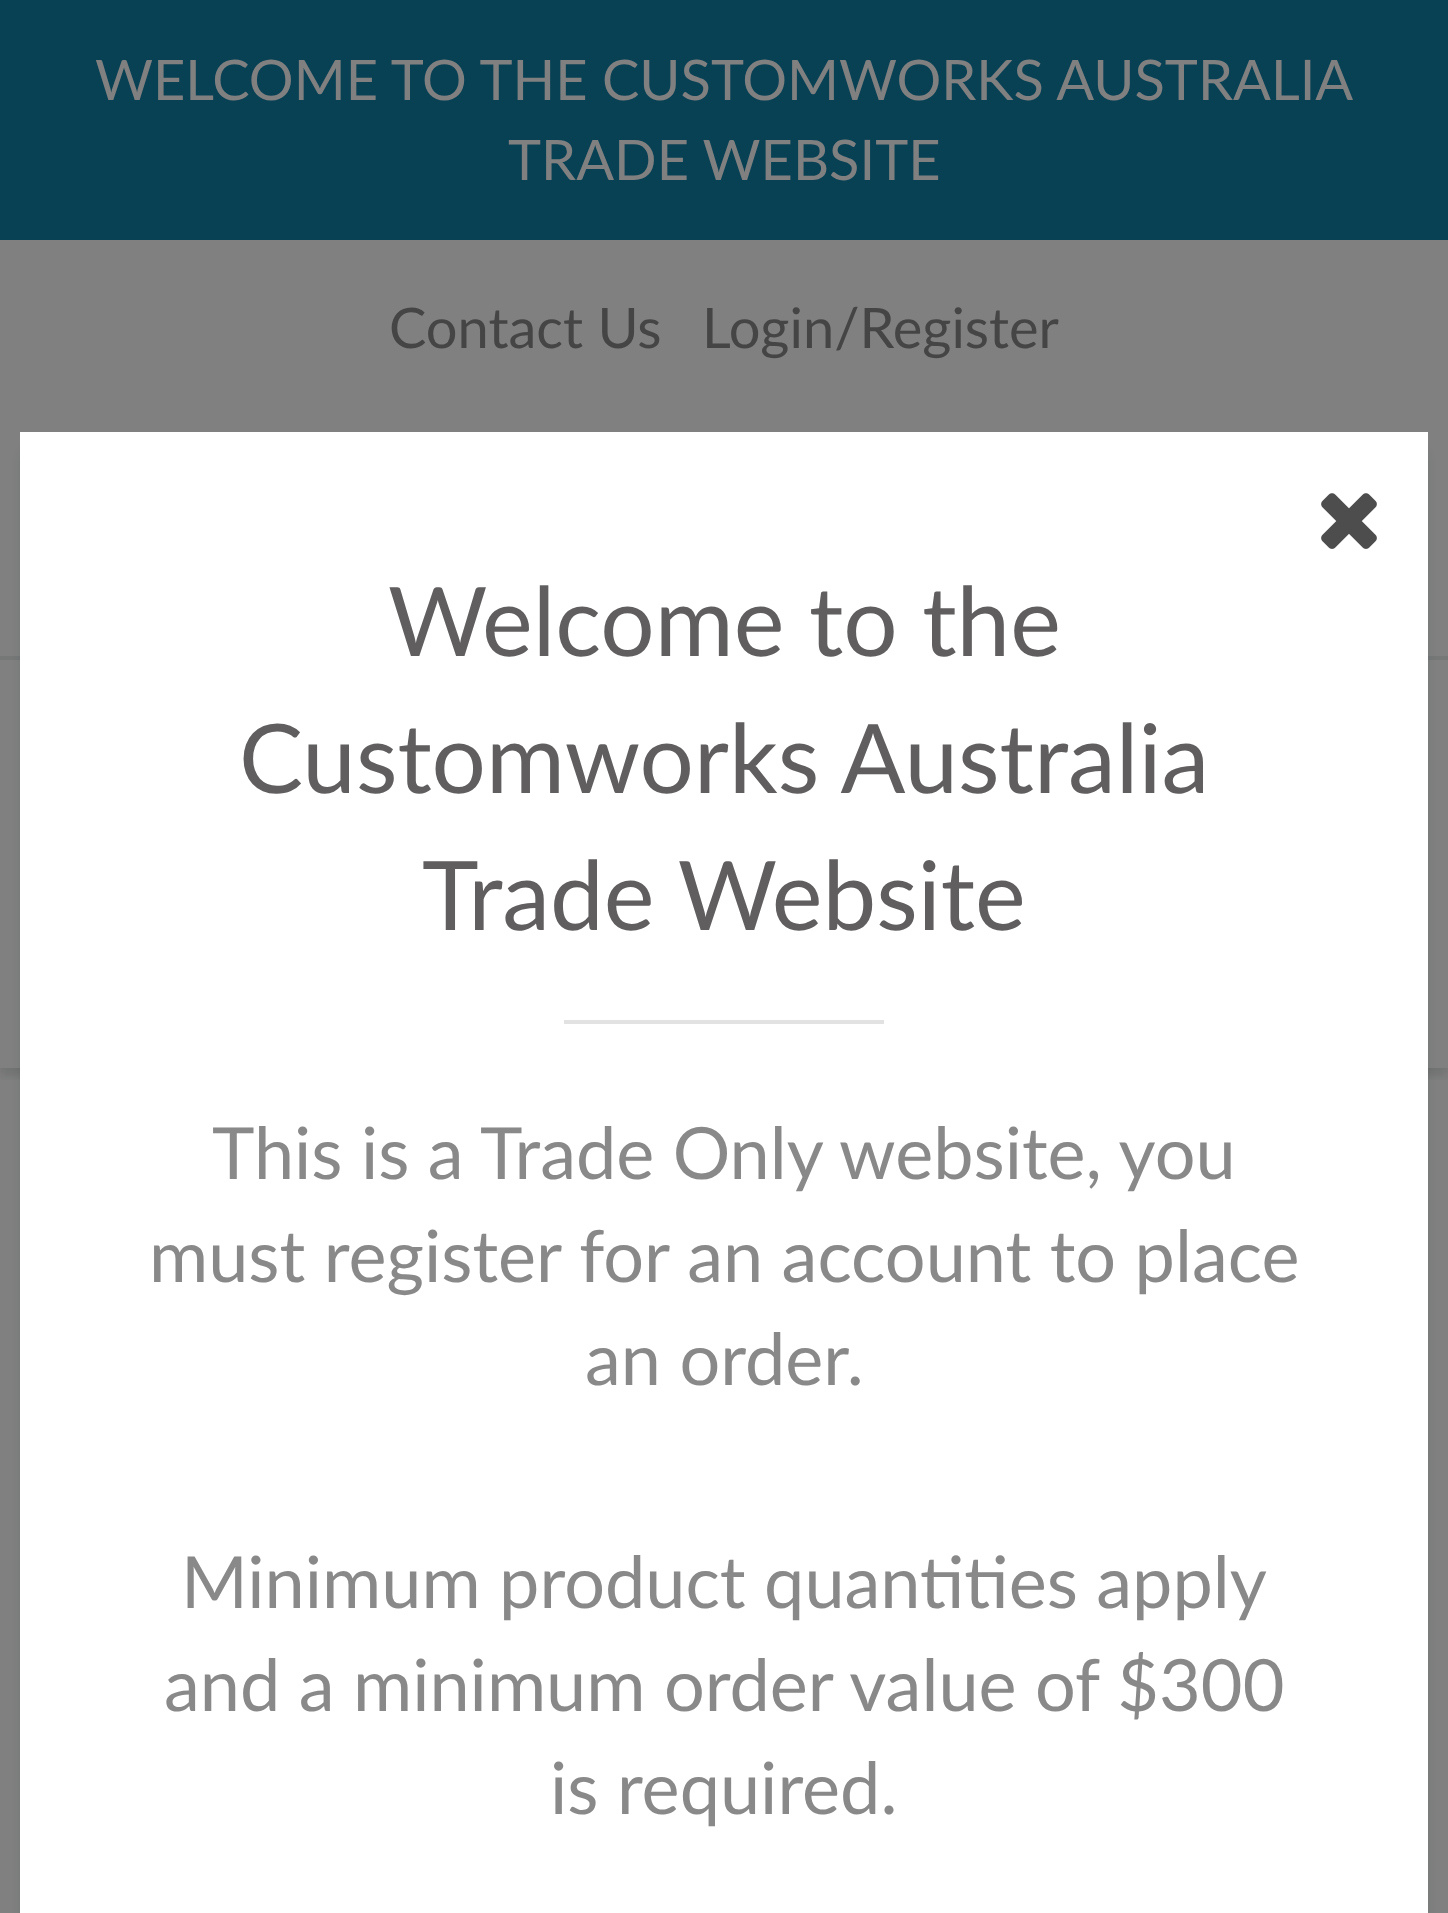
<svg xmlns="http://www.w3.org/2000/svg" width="1448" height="1913">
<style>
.a{font:56px Lato;fill:#808080}
.b{font:56px Lato;fill:#454545}
.c{font:96px Lato;fill:#605e5e}
.d{font:72px Lato;fill:#898989}
</style>
<defs>
<clipPath id="clip1"><path d="M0 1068h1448v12H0z"/></clipPath>
</defs>
<rect width="100%" height="100%" fill="#808080"/>
<path fill="#084054" d="M0 0h1448v240H0z"/>
<g clip-path="url(#clip1)">
<path fill="#060d0e1f" filter="blur(4px)" d="M0 664h1448v412H0z"/>
</g>
<path fill="#767878" d="M0 656h1448v4H0z"/>
<rect fill="#0b191c1a" filter="blur(4px)" x="20" y="440" width="1408" height="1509" rx="24"/>
<path fill="#fff" d="M20 432h1408v1481H20z"/>
<image href="1.png" x="1321" y="493" width="56" height="56"/>
<path fill="#e2e2e2" d="M564 1020h320v4H564z"/>
<text class="a" x="95" y="100">WELCOME TO THE CUSTOMWORKS AUSTRALIA</text>
<text class="a" x="508" y="180">TRADE WEBSITE</text>
<text class="b" x="389" y="348">Contact Us</text>
<text class="b" x="702" y="348">Login/Register</text>
<text class="c" x="388" y="656">Welcome to the</text>
<text class="c" x="239" y="793">Customworks Australia</text>
<text class="c" x="422" y="930">Trade Website</text>
<text class="d" x="212" y="1179">This is a Trade Only website, you</text>
<text class="d" x="149" y="1282">must register for an account to place</text>
<text class="d" x="585" y="1385">an order.</text>
<text class="d" x="181" y="1608">Minimum product quantities apply</text>
<text class="d" x="164" y="1711">and a minimum order value of $300</text>
<text class="d" x="550" y="1814">is required.</text>
</svg>
